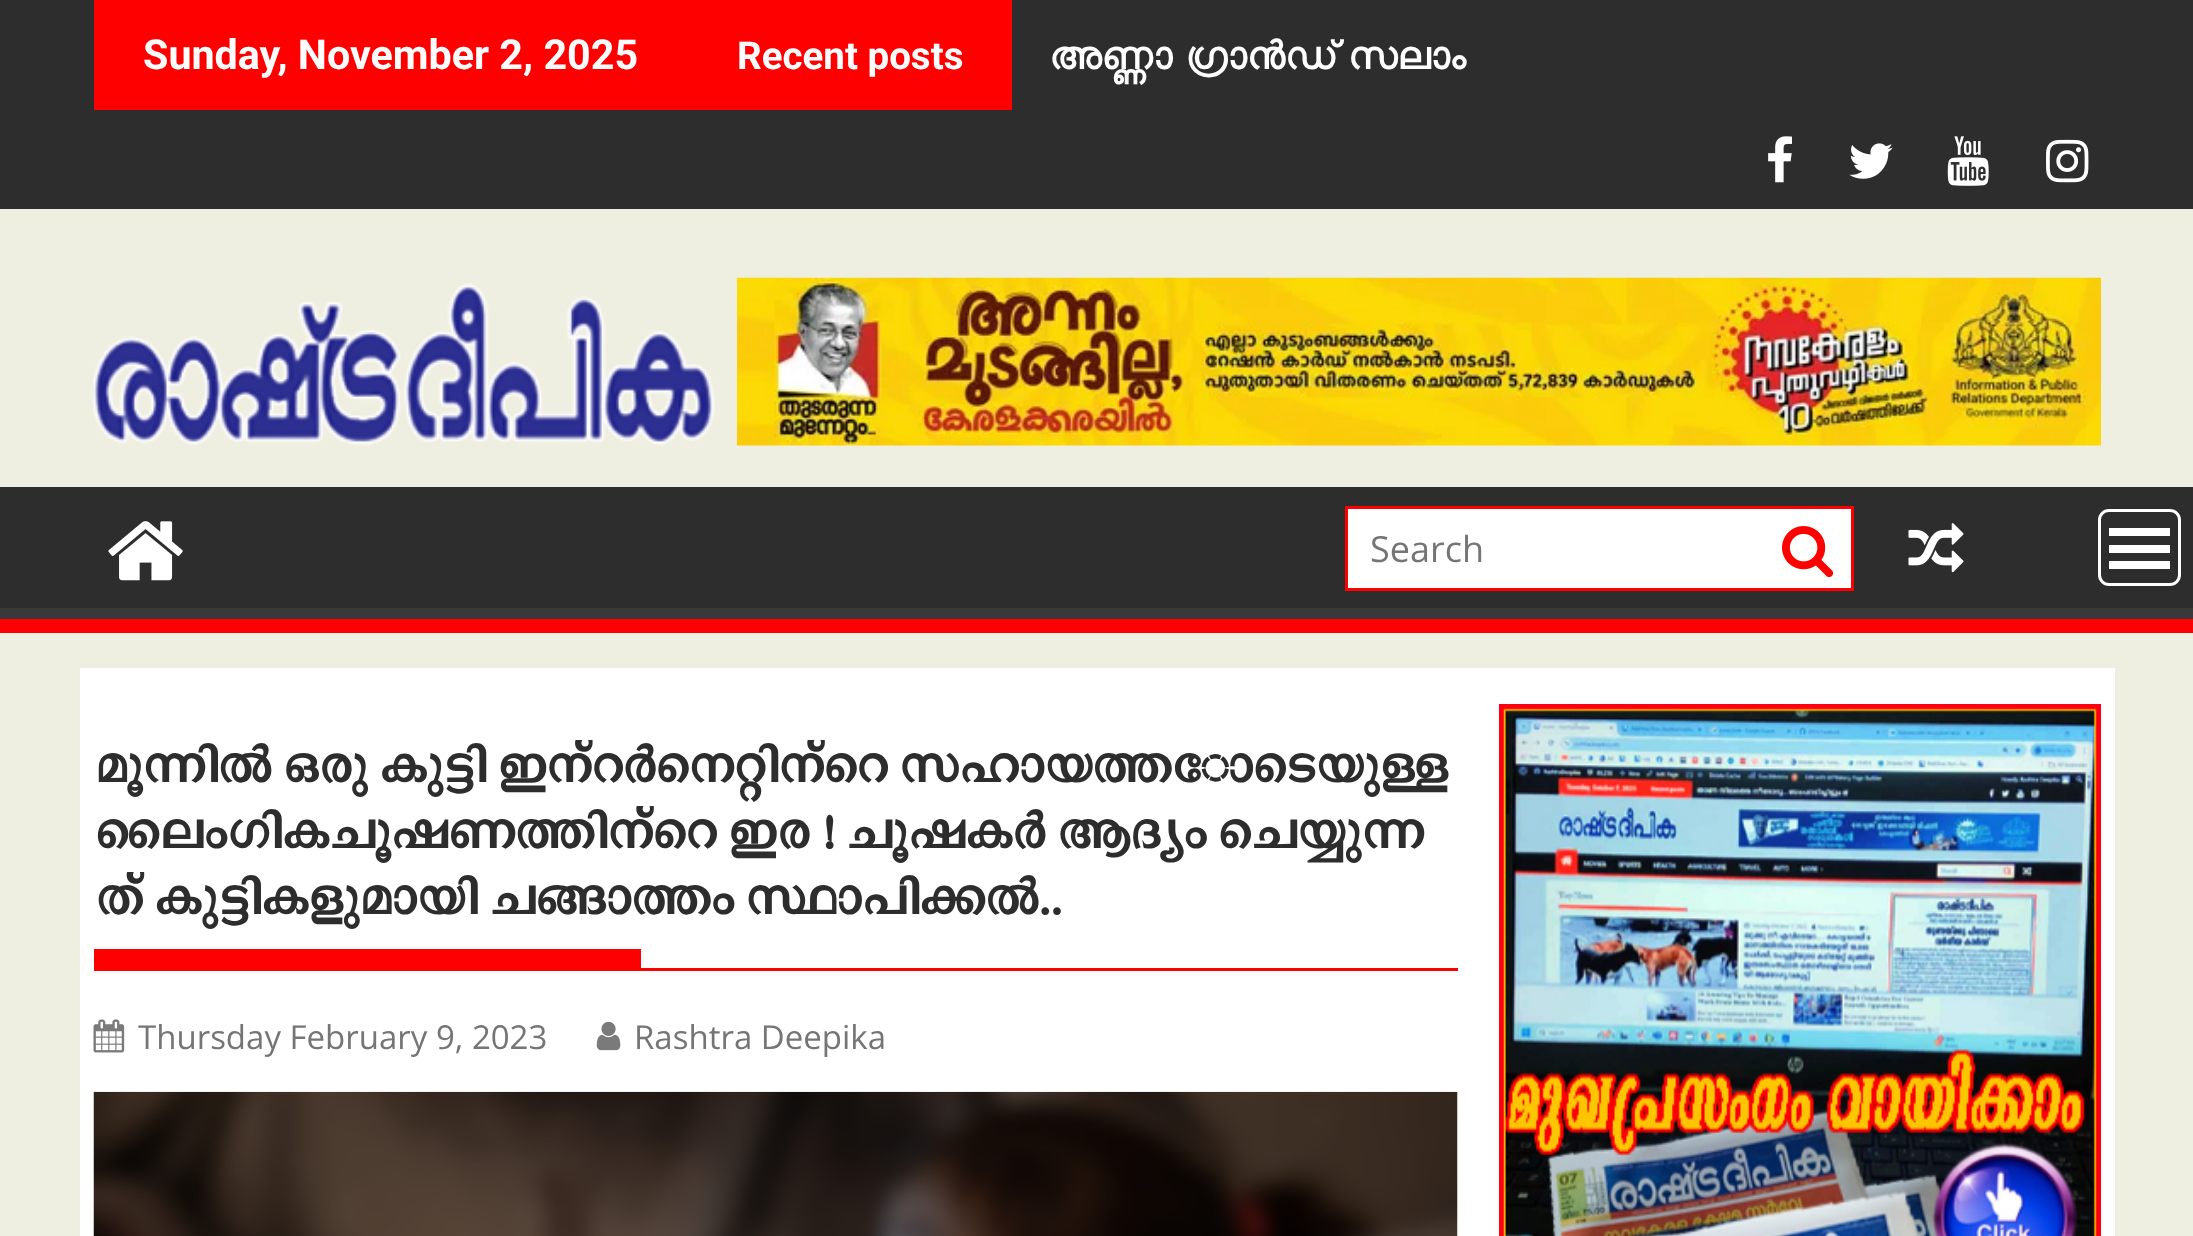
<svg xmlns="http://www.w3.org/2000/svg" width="2193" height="1236">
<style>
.a{font:bold 41.25px Roboto;fill:#fff}
.b{font:bold 38.5px Roboto;fill:#fff}
.c{font:bold 38.5px FreeSans;fill:#fff}
.d{font:36px Open Sans;fill:#757575}
.e{font:bold 60.5px 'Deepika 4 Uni';fill:#2d2d2d}
.f{font:33px Open Sans;fill:#757575}
</style>
<defs>
<clipPath id="clip1"><path d="M0 487h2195v132H0z"/></clipPath>
</defs>
<rect width="100%" height="100%" fill="#eeeee1"/>
<path fill="#2d2d2d" d="M0 0h2193v209H0z"/>
<path fill="#fe0000" d="M94 0h918v110H94z"/>
<image href="1.png" x="1768" y="136" width="24" height="47"/>
<image href="2.png" x="1849" y="143" width="44" height="36"/>
<image href="3.png" x="1947" y="136" width="42" height="50"/>
<image href="4.png" x="2046" y="139" width="43" height="44"/>
<image href="5.png" x="93" y="283" width="622" height="163"/>
<image href="6.png" x="737" y="277" width="1364" height="169"/>
<path fill="#2d2d2d" d="M0 487h2193v121H0z"/>
<g clip-path="url(#clip1)">
<path fill="#393939" fill-rule="evenodd" d="M-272 214h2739v677h-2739zm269 256h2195c1 0 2 1 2 3v132c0 2-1 3-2 3h-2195c-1 0-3-1-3-3v-132c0-2 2-3 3-3z"/>
</g>
<path fill="#fe0000" d="M0 619h2193v14H0z"/>
<image href="7.png" x="108" y="521" width="75" height="60"/>
<path fill="#fff" stroke="#fe0000" stroke-width="3" d="M1346.5 507.5h506v82H1346.5z"/>
<image href="8.png" x="1782" y="526" width="52" height="52"/>
<image href="9.png" x="1908" y="523" width="56" height="50"/>
<rect fill="none" stroke="#fff" stroke-width="3" x="2099.5" y="510.5" width="80" height="74" rx="9.5"/>
<path fill="#fff" d="M2109 561h61v8H2109z"/>
<path fill="#fff" d="M2109 545h61v8H2109z"/>
<path fill="#fff" d="M2109 528h61v8H2109z"/>
<path fill="#fff" d="M80 668h2035v568H80z"/>
<path fill="#fe0000" d="M94 968h1364v3H94z"/>
<path fill="#fe0000" d="M94 949h547v19H94z"/>
<image href="10.png" x="93" y="1019" width="32" height="34"/>
<image href="11.png" x="596" y="1021" width="25" height="30"/>
<image href="12.png" x="93" y="1091" width="1365" height="145"/>
<image href="13.png" x="1499" y="704" width="602" height="532"/>
<text class="a" x="143" y="69">Sunday, November 2, 2025</text>
<text class="b" x="737" y="69">Recent posts</text>
<text class="c" x="1049" y="69" word-spacing="-2">അണ്ണാ ഗ്രാന്‍ഡ് സലാം</text>
<text class="d" x="1370" y="562">Search</text>
<text class="e" x="94" y="782">മൂന്നില്‍ ഒരു കുട്ടി ഇന്റര്‍നെറ്റിന്റെ സഹായത്തോടെയുള്ള</text>
<text class="e" x="94" y="848">ലൈംഗികചൂഷണത്തിന്റെ ഇര ! ചൂഷകര്‍ ആദ്യം ചെയ്യുന്ന</text>
<text class="e" x="94" y="914">ത് കുട്ടികളുമായി ചങ്ങാത്തം സ്ഥാപിക്കല്‍..</text>
<text class="f" x="138" y="1049">Thursday February 9, 2023</text>
<text class="f" x="634" y="1049">Rashtra Deepika</text>
</svg>
